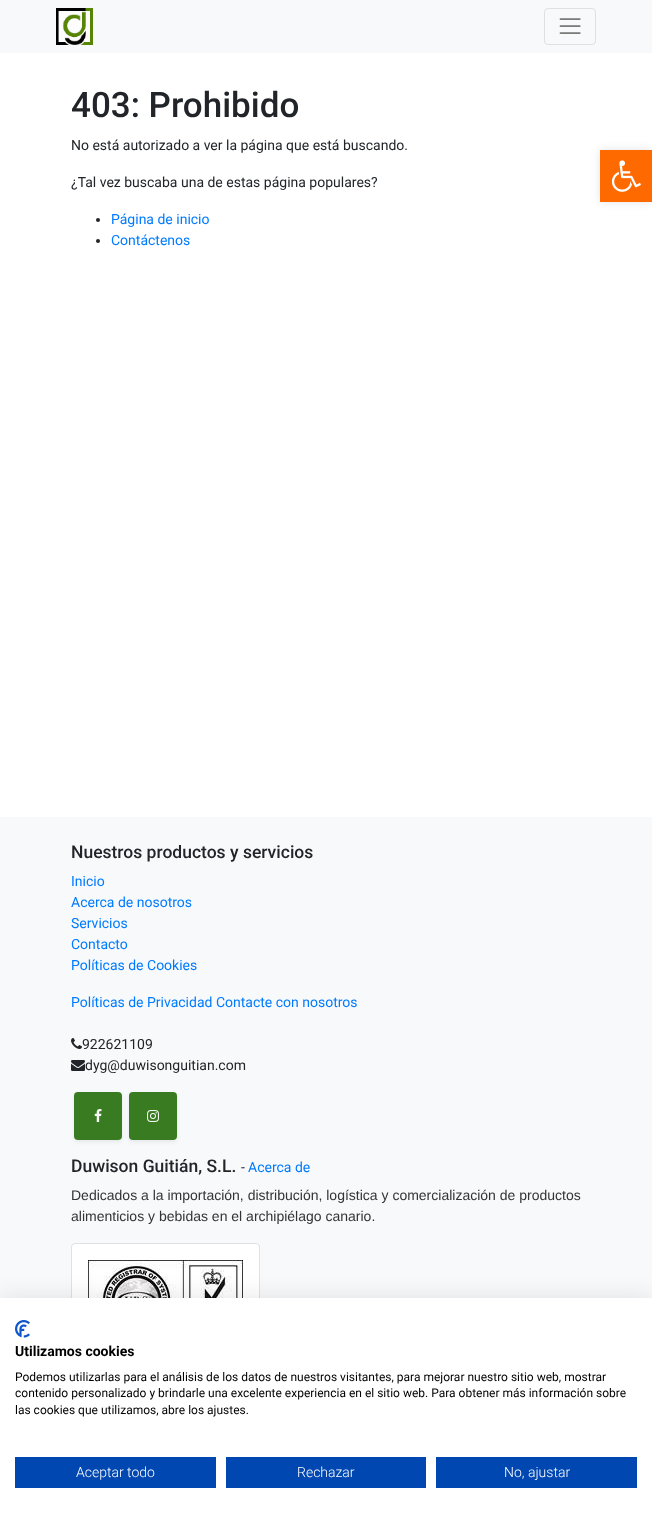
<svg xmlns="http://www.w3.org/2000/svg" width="652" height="1515">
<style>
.a{font:500 35px Roboto;fill:#212529}
.b{font:14px Roboto;fill:#212529}
.c{font:14px Roboto;fill:#007bff}
.d{font:500 17.5px Roboto;fill:#212529}
.e{font:14px Liberation Sans;fill:#333}
.f{font:bold 14px Roboto;fill:#000}
.g{font:12px Roboto;fill:#000}
.h{font:300 14px Roboto;fill:#fff}
</style>
<rect width="100%" height="100%" fill="#fff"/>
<path fill="#f8f9fa" d="M0 0h652v53H0z"/>
<image href="1.png" x="56" y="8" width="37" height="37"/>
<rect fill="none" stroke="#dfe0e1" x="544.5" y="8.5" width="51" height="36" rx="3.5"/>
<image href="2.png" x="559" y="18" width="22" height="16"/>
<circle fill="#212529" cx="98" cy="220" r="2"/>
<circle fill="#212529" cx="98" cy="241" r="2"/>
<path fill="#f8f9fa" d="M0 817h652v481H0z"/>
<image href="3.png" x="71" y="1038" width="11" height="11"/>
<image href="4.png" x="71" y="1060" width="14" height="11"/>
<rect fill="#00000012" filter="blur(2px)" x="74" y="1094" width="48" height="48" rx="4"/>
<rect fill="#397b21" x="74" y="1092" width="48" height="48" rx="4"/>
<image href="5.png" x="94" y="1109" width="8" height="13"/>
<rect fill="#00000012" filter="blur(2px)" x="129" y="1094" width="48" height="48" rx="4"/>
<rect fill="#397b21" x="129" y="1092" width="48" height="48" rx="4"/>
<image href="6.png" x="147" y="1110" width="12" height="12"/>
<rect fill="#fff" stroke="#dee2e6" x="71.5" y="1243.5" width="188" height="114" rx="3.5"/>
<image href="7.png" x="88" y="1260" width="155" height="38"/>
<path fill="#0000001a" filter="blur(5px)" d="M600 150h52v52H600z"/>
<path fill="#ff6a00" d="M600 150h52v52H600z"/>
<image href="8.png" x="611" y="160" width="30" height="32"/>
<path fill="#0000001a" filter="blur(12px)" d="M0 1298h652v217H0z"/>
<path fill="#fff" d="M0 1298h652v217H0z"/>
<image href="9.png" x="15" y="1320" width="15" height="18"/>
<path fill="#0047b2" d="M15 1457h201v31H15z"/>
<path fill="#0047b2" d="M226 1457h200v31H226z"/>
<path fill="#0047b2" d="M436 1457h201v31H436z"/>
<text class="a" x="71" y="117">403: Prohibido</text>
<text class="b" x="71" y="150">No está autorizado a ver la página que está buscando.</text>
<text class="b" x="71" y="187">¿Tal vez buscaba una de estas página populares?</text>
<text class="c" x="111" y="224">Página de inicio</text>
<text class="c" x="111" y="245">Contáctenos</text>
<text class="d" x="71" y="858">Nuestros productos y servicios</text>
<text class="c" x="71" y="886">Inicio</text>
<text class="c" x="71" y="907">Acerca de nosotros</text>
<text class="c" x="71" y="928">Servicios</text>
<text class="c" x="71" y="949">Contacto</text>
<text class="c" x="71" y="970">Políticas de Cookies</text>
<text class="c" x="71" y="1007">Políticas de Privacidad Contacte con nosotros</text>
<text class="b" x="82" y="1049">922621109</text>
<text class="b" x="85" y="1070">dyg@duwisonguitian.com</text>
<text class="d" x="71" y="1172">Duwison Guitián, S.L.</text>
<text class="b" x="241" y="1172">-</text>
<text class="c" x="248" y="1172">Acerca de</text>
<text class="e" x="71" y="1200">Dedicados a la importación, distribución, logística y comercialización de productos</text>
<text class="e" x="71" y="1221">alimenticios y bebidas en el archipiélago canario.</text>
<text class="f" x="15" y="1356">Utilizamos cookies</text>
<text class="g" x="15" y="1381">Podemos utilizarlas para el análisis de los datos de nuestros visitantes, para mejorar nuestro sitio web, mostrar</text>
<text class="g" x="15" y="1397">contenido personalizado y brindarle una excelente experiencia en el sitio web. Para obtener más información sobre</text>
<text class="g" x="15" y="1414">las cookies que utilizamos, abre los ajustes.</text>
<text class="h" x="76" y="1477">Aceptar todo</text>
<text class="h" x="297" y="1477">Rechazar</text>
<text class="h" x="504" y="1477">No, ajustar</text>
</svg>
